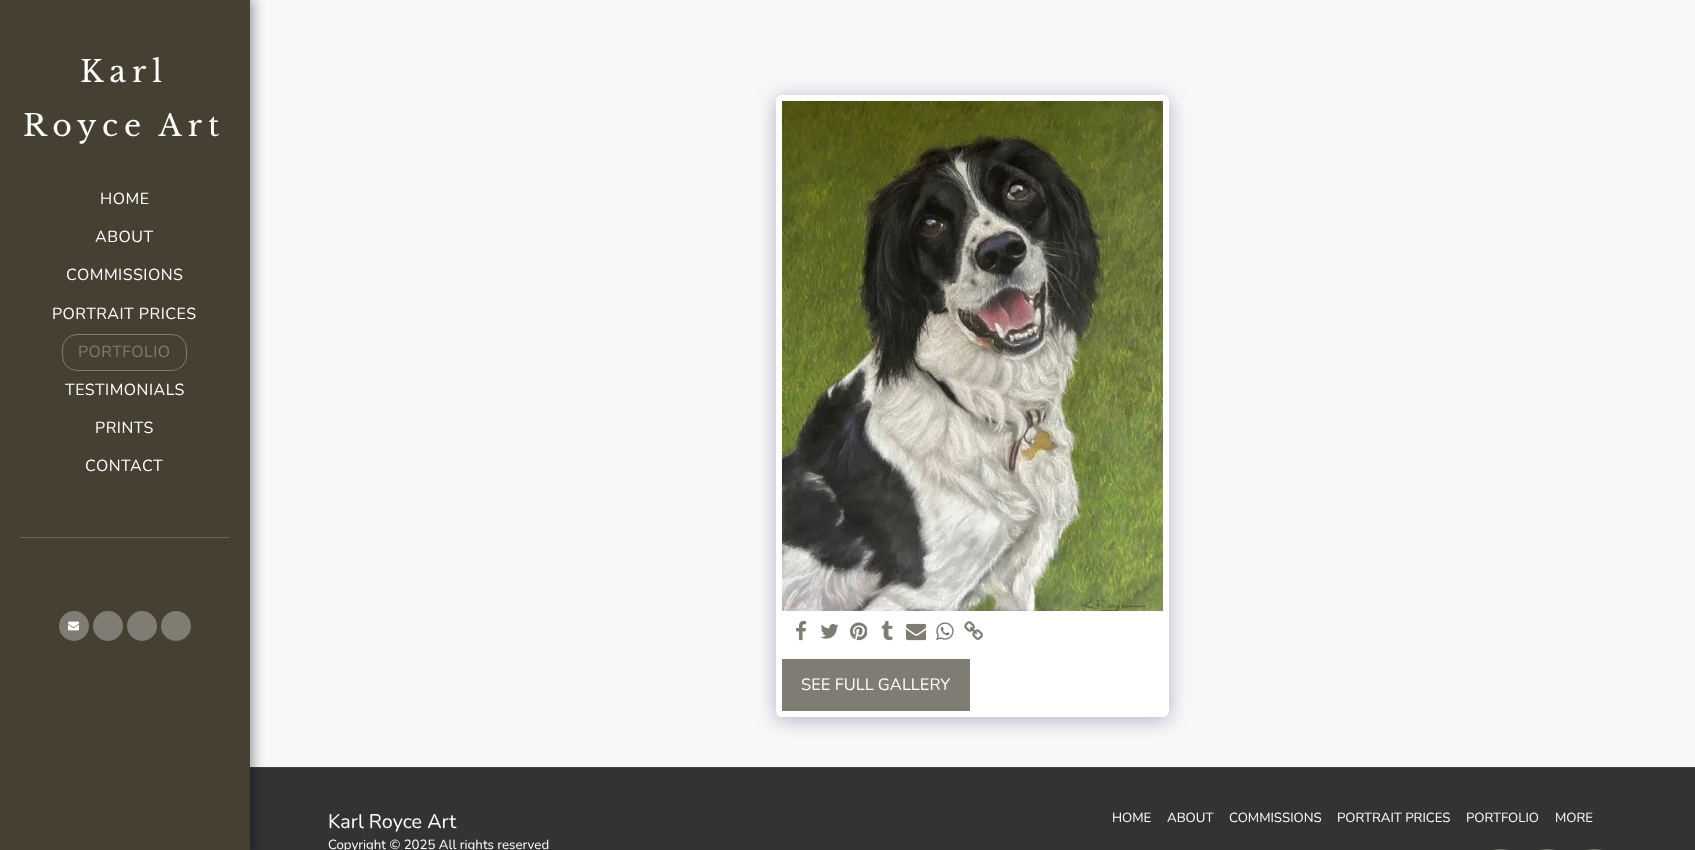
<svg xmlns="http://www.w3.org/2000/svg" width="1695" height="850">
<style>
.a{font:30px Libre Baskerville;letter-spacing:6px;fill:#fff}
.b{font:16px Nunito;letter-spacing:0.5px;fill:#fff}
.c{font:16px Nunito;letter-spacing:0.5px;fill:#7e7c73}
.d{font:16.5px Nunito;fill:#fff}
.e{font:19.75px Nunito;fill:#fff}
.f{font:13.25px Nunito;fill:#fff}
</style>
<rect width="100%" height="100%" fill="#f7f9f8"/>
<path fill="#333" d="M250 768h1445v82H250z"/>
<path fill="#464033" d="M250 767h1445v1H250z"/>
<path fill="#00000059" filter="blur(6px)" d="M0 -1h254v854H0z"/>
<path fill="#464033" d="M0 0h250v850H0z"/>
<rect fill="none" stroke="#7e7c73" x="62.5" y="334.5" width="124" height="36" rx="14.5"/>
<path fill="#6b665c" d="M20 537h209v1H20z"/>
<circle fill="#7e7c73" cx="74" cy="626" r="15"/>
<image href="1.png" x="68" y="621" width="11" height="10"/>
<circle fill="#7e7c73" cx="108" cy="626" r="15"/>
<circle fill="#7e7c73" cx="142" cy="626" r="15"/>
<circle fill="#7e7c73" cx="176" cy="626" r="15"/>
<rect fill="#4d3f7a66" filter="blur(10px)" x="776" y="98" width="393" height="622" rx="6"/>
<rect fill="#fff" x="776" y="95" width="393" height="622" rx="6"/>
<image href="2.png" x="782" y="101" width="381" height="510"/>
<image href="3.png" x="796" y="621" width="11" height="20"/>
<image href="4.png" x="820" y="624" width="19" height="15"/>
<image href="5.png" x="850" y="622" width="17" height="19"/>
<image href="6.png" x="881" y="621" width="12" height="20"/>
<image href="7.png" x="906" y="623" width="20" height="18"/>
<image href="8.png" x="936" y="622" width="18" height="19"/>
<image href="9.png" x="964" y="621" width="19" height="19"/>
<path fill="#7e7c73" d="M782 659h188v52H782z"/>
<rect fill="none" stroke="#7e7c73" x="1482.5" y="849.5" width="36" height="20" rx="18"/>
<rect fill="none" stroke="#7e7c73" x="1529.5" y="849.5" width="36" height="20" rx="18"/>
<rect fill="none" stroke="#7e7c73" x="1576.5" y="849.5" width="36" height="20" rx="18"/>
<text class="a" x="80" y="82">Karl</text>
<text class="a" x="23" y="136" word-spacing="-2">Royce Art</text>
<text class="b" x="100" y="204">HOME</text>
<text class="b" x="95" y="242">ABOUT</text>
<text class="b" x="66" y="280">COMMISSIONS</text>
<text class="b" x="52" y="319">PORTRAIT PRICES</text>
<text class="c" x="78" y="357">PORTFOLIO</text>
<text class="b" x="65" y="395">TESTIMONIALS</text>
<text class="b" x="95" y="433">PRINTS</text>
<text class="b" x="85" y="471">CONTACT</text>
<text class="d" x="801" y="690">SEE FULL GALLERY</text>
<text class="e" x="328" y="828">Karl Royce Art</text>
<text class="f" x="328" y="849">Copyright © 2025 All rights reserved</text>
<text class="f" x="1112" y="822">HOME</text>
<text class="f" x="1167" y="822">ABOUT</text>
<text class="f" x="1229" y="822">COMMISSIONS</text>
<text class="f" x="1337" y="822">PORTRAIT PRICES</text>
<text class="f" x="1466" y="822">PORTFOLIO</text>
<text class="f" x="1555" y="822">MORE</text>
</svg>
